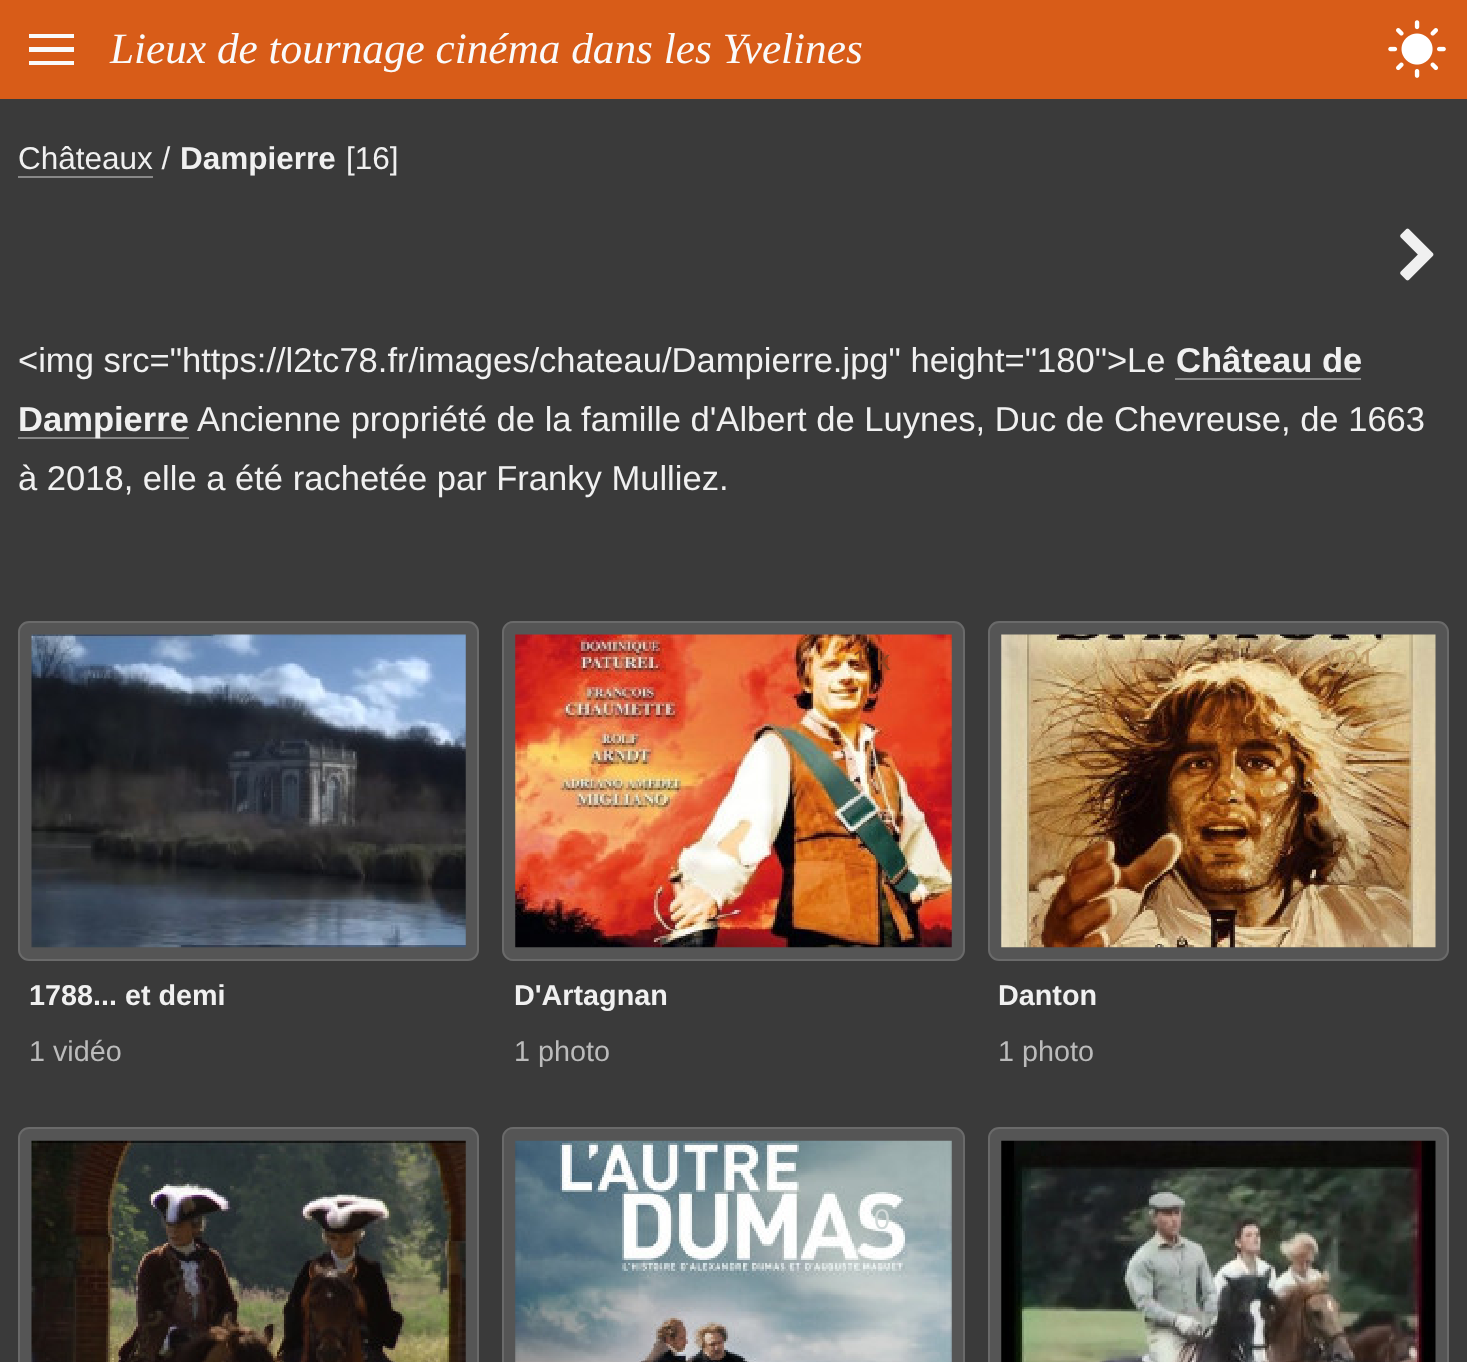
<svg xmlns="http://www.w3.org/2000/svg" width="1467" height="1362">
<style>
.a{font:italic 43.25px Liberation Serif;fill:#fafafa}
.b{font:31.5px Liberation Sans;fill:#f0f0f0}
.c{font:bold 31.5px Liberation Sans;fill:#f0f0f0}
.d{font:34.55px Liberation Sans;fill:#f0f0f0}
.e{font:bold 34.55px Liberation Sans;fill:#f0f0f0}
.f{font:bold 28.75px Liberation Sans;fill:#f0f0f0}
.g{font:28.75px Liberation Sans;fill:#bbb}
.h{font:28.75px Liberation Sans;fill:#91441f}
.i{font:28.75px Liberation Sans;fill:#bd9d6b}
.j{font:28.75px Liberation Sans;fill:#d0d8d7}
</style>
<rect width="100%" height="100%" fill="#3a3a3a"/>
<path fill="#d85c18" d="M0 0h1467v99H0z"/>
<path fill="#fafafa" d="M29 34h45v4h-45zm0 13h45v5h-45zm0 14h45v4h-45z"/>
<image href="1.png" x="1388" y="20" width="58" height="58"/>
<path fill="#888" d="M18 176h135v2H18z"/>
<image href="2.png" x="1400" y="228" width="34" height="53"/>
<path fill="#888" d="M1175 378h186v2H1175z"/>
<path fill="#888" d="M18 437h171v2H18z"/>
<rect fill="#555" stroke="#6a6a6a" stroke-width="2" x="19" y="622" width="459" height="338" rx="10"/>
<image href="3.png" x="31" y="634" width="435" height="314"/>
<rect fill="#555" stroke="#6a6a6a" stroke-width="2" x="503" y="622" width="461" height="338" rx="10"/>
<image href="4.png" x="515" y="634" width="437" height="314"/>
<rect fill="#555" stroke="#6a6a6a" stroke-width="2" x="989" y="622" width="459" height="338" rx="10"/>
<image href="5.png" x="1001" y="634" width="435" height="314"/>
<rect fill="#555" stroke="#6a6a6a" stroke-width="2" x="19" y="1128" width="459" height="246" rx="10"/>
<image href="6.png" x="31" y="1140" width="435" height="222"/>
<rect fill="#555" stroke="#6a6a6a" stroke-width="2" x="503" y="1128" width="461" height="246" rx="10"/>
<image href="7.png" x="515" y="1140" width="437" height="222"/>
<rect fill="#555" stroke="#6a6a6a" stroke-width="2" x="989" y="1128" width="459" height="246" rx="10"/>
<image href="8.png" x="1001" y="1140" width="435" height="222"/>
<text class="a" x="110" y="63">Lieux de tournage cinéma dans les Yvelines</text>
<text class="b" x="18" y="169">Châteaux /</text>
<text class="c" x="180" y="169">Dampierre</text>
<text class="b" x="346" y="169">[16]</text>
<text class="d" x="18" y="372">&lt;img src="https://l2tc78.fr/images/chateau/Dampierre.jpg" height="180"&gt;Le</text>
<text class="e" x="1176" y="372">Château de</text>
<text class="e" x="18" y="431">Dampierre</text>
<text class="d" x="197" y="431">Ancienne propriété de la famille d'Albert de Luynes, Duc de Chevreuse, de 1663</text>
<text class="d" x="18" y="490">à 2018, elle a été rachetée par Franky Mulliez.</text>
<text class="f" x="29" y="1005">1788... et demi</text>
<text class="g" x="29" y="1061">1 vidéo</text>
<text class="h" x="852" y="670">1 k</text>
<text class="f" x="514" y="1005">D'Artagnan</text>
<text class="g" x="514" y="1061">1 photo</text>
<text class="i" x="1327" y="670">991</text>
<text class="f" x="998" y="1005">Danton</text>
<text class="g" x="998" y="1061">1 photo</text>
<text class="j" x="874" y="1229">0</text>
</svg>
